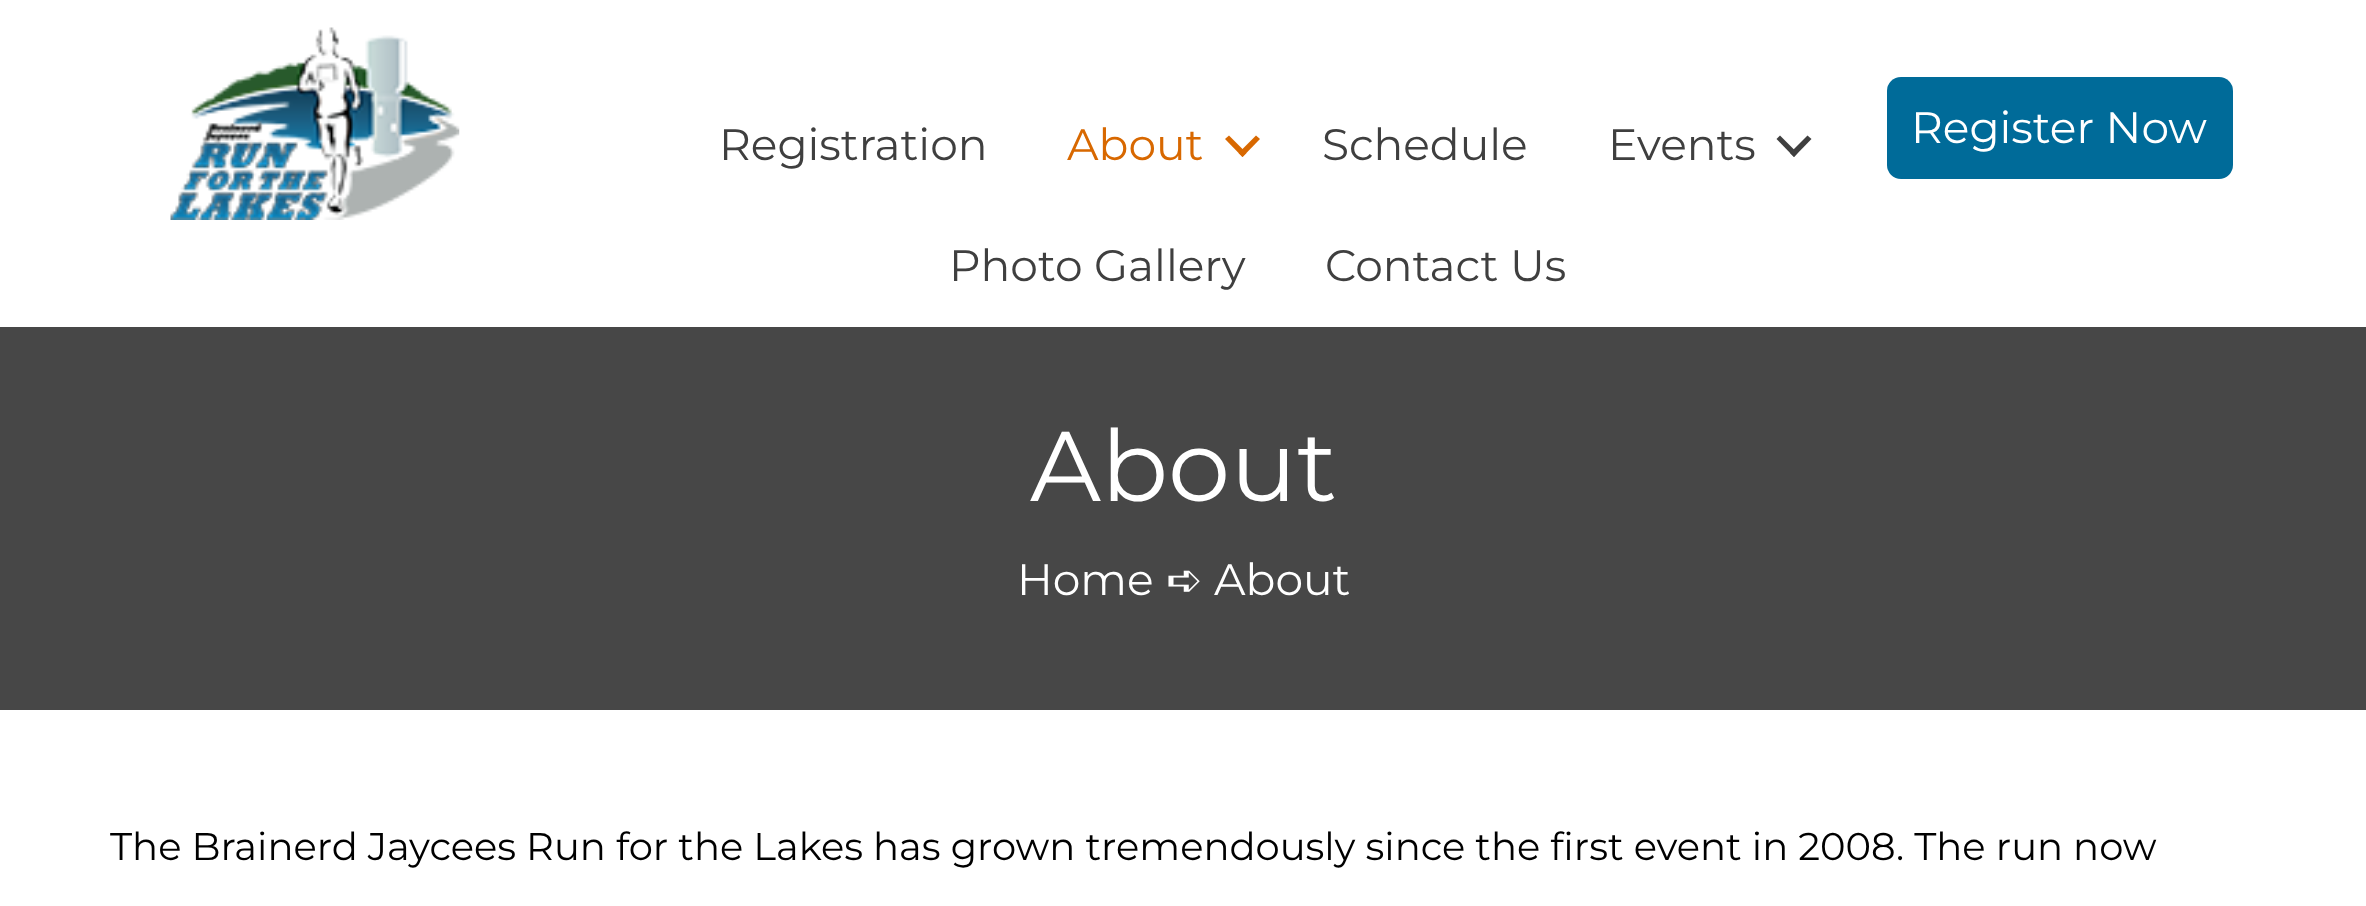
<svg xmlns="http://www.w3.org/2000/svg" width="2366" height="906">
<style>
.a{font:44px Montserrat;fill:#3f3f3f}
.b{font:44px Montserrat;fill:#d86800}
.c{font:44px Montserrat;fill:#fff}
.d{font:99px Montserrat;fill:#fff}
.e{font:44px DejaVu Sans;fill:#fff}
.f{font:38.5px Montserrat;fill:#000}
</style>
<rect width="100%" height="100%" fill="#fff"/>
<image href="1.png" x="170" y="27" width="290" height="193"/>
<path fill="#d86800" d="M1256 135.5l4 3.5l-17.5 18l-4-4z"/>
<path fill="#d86800" d="M1229 135.5l17.5 17.5l-4 4l-17.5-18z"/>
<path fill="#3f3f3f" d="M1807.5 135.5l4 3.5l-17.5 18l-4-4z"/>
<path fill="#3f3f3f" d="M1780 135.5l17.5 17.5l-3.5 4l-17.5-18z"/>
<rect fill="#006b99" x="1887" y="77" width="346" height="102" rx="14"/>
<path fill="#474747" d="M0 327h2366v383H0z"/>
<text class="a" x="719" y="160">Registration</text>
<text class="b" x="1067" y="160">About</text>
<text class="a" x="1322" y="160">Schedule</text>
<text class="a" x="1608" y="160">Events</text>
<text class="a" x="949" y="281">Photo Gallery</text>
<text class="a" x="1325" y="281">Contact Us</text>
<text class="c" x="1911" y="143">Register Now</text>
<text class="d" x="1030" y="501">About</text>
<text class="c" x="1017" y="595">Home</text>
<text class="e" x="1166" y="595">➪</text>
<text class="c" x="1214" y="595">About</text>
<text class="f" x="110" y="860">The Brainerd Jaycees Run for the Lakes has grown tremendously since the first event in 2008. The run now</text>
</svg>
